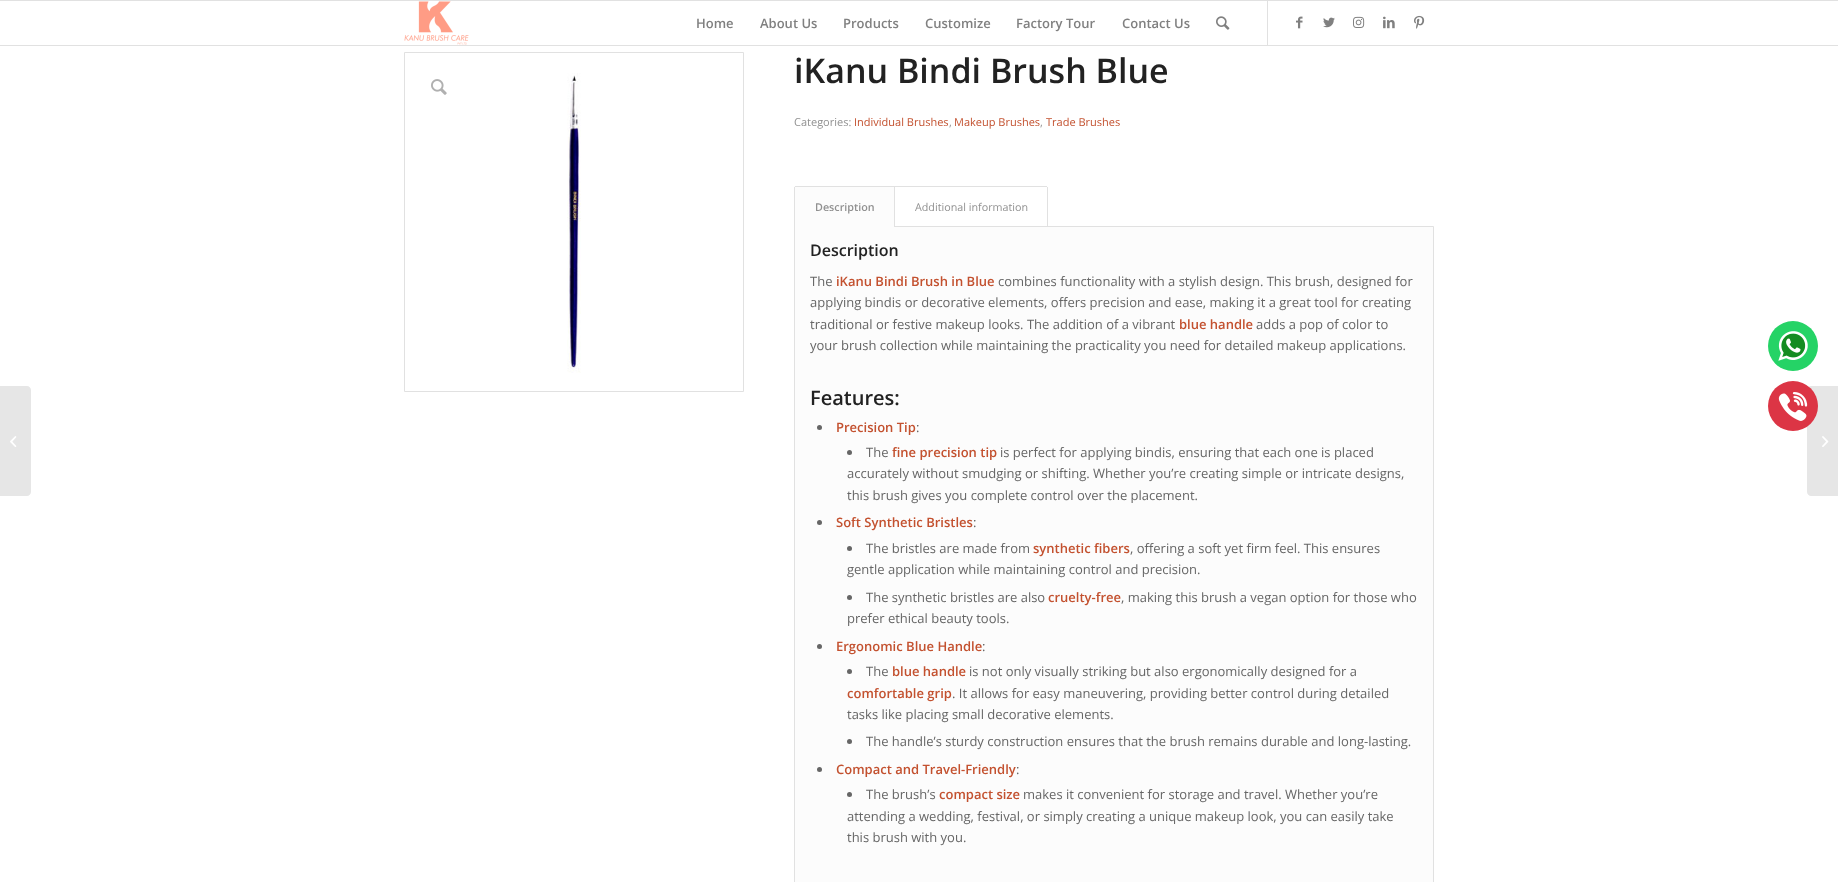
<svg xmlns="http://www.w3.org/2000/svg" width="1838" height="882">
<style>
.a{font:600 13px Open Sans;fill:#808080}
.b{font:600 34px Open Sans;fill:#222}
.c{font:11px Open Sans;fill:#919191}
.d{font:11px Open Sans;fill:#c3512f}
.e{font:600 10.75px Open Sans;fill:#919191}
.f{font:10.75px Open Sans;fill:#919191}
.g{font:600 16px Open Sans;fill:#222}
.h{font:13px Open Sans;fill:#666}
.i{font:600 13px Open Sans;fill:#c3512f}
.j{font:600 20px Open Sans;fill:#222}
</style>
<rect width="100%" height="100%" fill="#fff"/>
<path fill="#e1e1e1" d="M0 0h1838v1H0z"/>
<path fill="#e1e1e1" d="M0 45h1838v1H0z"/>
<image href="1.png" x="404" y="1" width="65" height="44"/>
<path fill="#e1e1e1" d="M1267 1h1v44H1267z"/>
<image href="2.png" x="1216" y="16" width="14" height="14"/>
<image href="3.png" x="1296" y="16" width="7" height="13"/>
<image href="4.png" x="1323" y="17" width="12" height="11"/>
<image href="5.png" x="1353" y="16" width="12" height="12"/>
<image href="6.png" x="1383" y="16" width="12" height="13"/>
<image href="7.png" x="1414" y="15" width="11" height="14"/>
<path fill="#e6e6e6" d="M0 386h27c2 0 4 2 4 4v102c0 2-2 4-4 4h-27z"/>
<image href="8.png" x="10" y="436" width="7" height="11"/>
<path fill="none" stroke="#e1e1e1" d="M404.5 52.5h339v339H404.5z"/>
<image href="9.png" x="567" y="73" width="14" height="300"/>
<image href="10.png" x="431" y="79" width="16" height="16"/>
<path fill="#fcfcfc" stroke="#e1e1e1" d="M794.5 226.5h639v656H794.5z"/>
<path fill="#fcfcfc" d="M794 186h100v41H794z"/>
<path fill="#e1e1e1" d="M894 186h153v1H894z"/>
<path fill="#e1e1e1" d="M795 186h100v1H795z"/>
<path fill="#e1e1e1" d="M894 186h1v41H894z"/>
<path fill="#e1e1e1" d="M794 187h1v40H794z"/>
<path fill="#e1e1e1" d="M1047 187h1v40H1047z"/>
<circle fill="#666" cx="819.5" cy="427.5" r="2.5"/>
<circle fill="#666" cx="849.5" cy="452.5" r="2.5"/>
<circle fill="#666" cx="819.5" cy="522.5" r="2.5"/>
<circle fill="#666" cx="849.5" cy="548.5" r="2.5"/>
<circle fill="#666" cx="849.5" cy="597.5" r="2.5"/>
<circle fill="#666" cx="819.5" cy="646.5" r="2.5"/>
<circle fill="#666" cx="849.5" cy="671.5" r="2.5"/>
<circle fill="#666" cx="849.5" cy="741.5" r="2.5"/>
<circle fill="#666" cx="819.5" cy="769.5" r="2.5"/>
<circle fill="#666" cx="849.5" cy="794.5" r="2.5"/>
<path fill="#e6e6e6" d="M1811 386h27v110h-27c-2 0-4-2-4-4v-102c0-2 2-4 4-4z"/>
<image href="11.png" x="1822" y="436" width="7" height="11"/>
<circle fill="#25d366" cx="1793" cy="346" r="25"/>
<image href="12.png" x="1778" y="331" width="30" height="30"/>
<circle fill="#dc3545" cx="1793" cy="406" r="25"/>
<image href="13.png" x="1778" y="392" width="30" height="29"/>
<text class="a" x="696" y="28">Home</text>
<text class="a" x="760" y="28">About Us</text>
<text class="a" x="843" y="28">Products</text>
<text class="a" x="925" y="28">Customize</text>
<text class="a" x="1016" y="28">Factory Tour</text>
<text class="a" x="1122" y="28">Contact Us</text>
<text class="b" x="794" y="83">iKanu Bindi Brush Blue</text>
<text class="c" x="794" y="126">Categories:</text>
<text class="d" x="854" y="126">Individual Brushes</text>
<text class="c" x="949" y="126">,</text>
<text class="d" x="954" y="126">Makeup Brushes</text>
<text class="c" x="1040" y="126">,</text>
<text class="d" x="1046" y="126">Trade Brushes</text>
<text class="e" x="815" y="211">Description</text>
<text class="f" x="915" y="211">Additional information</text>
<text class="g" x="810" y="256">Description</text>
<text class="h" x="810" y="286">The</text>
<text class="i" x="836" y="286">iKanu Bindi Brush in Blue</text>
<text class="h" x="998" y="286">combines functionality with a stylish design. This brush, designed for</text>
<text class="h" x="810" y="307">applying bindis or decorative elements, offers precision and ease, making it a great tool for creating</text>
<text class="h" x="810" y="329">traditional or festive makeup looks. The addition of a vibrant</text>
<text class="i" x="1179" y="329">blue handle</text>
<text class="h" x="1256" y="329">adds a pop of color to</text>
<text class="h" x="810" y="350">your brush collection while maintaining the practicality you need for detailed makeup applications.</text>
<text class="j" x="810" y="405">Features:</text>
<text class="i" x="836" y="432">Precision Tip</text>
<text class="h" x="916" y="432">:</text>
<text class="h" x="866" y="457">The</text>
<text class="i" x="892" y="457">fine precision tip</text>
<text class="h" x="1000" y="457">is perfect for applying bindis, ensuring that each one is placed</text>
<text class="h" x="847" y="478">accurately without smudging or shifting. Whether you’re creating simple or intricate designs,</text>
<text class="h" x="847" y="500">this brush gives you complete control over the placement.</text>
<text class="i" x="836" y="527">Soft Synthetic Bristles</text>
<text class="h" x="973" y="527">:</text>
<text class="h" x="866" y="553">The bristles are made from</text>
<text class="i" x="1033" y="553">synthetic fibers</text>
<text class="h" x="1130" y="553">, offering a soft yet firm feel. This ensures</text>
<text class="h" x="847" y="574">gentle application while maintaining control and precision.</text>
<text class="h" x="866" y="602">The synthetic bristles are also</text>
<text class="i" x="1048" y="602">cruelty-free</text>
<text class="h" x="1121" y="602">, making this brush a vegan option for those who</text>
<text class="h" x="847" y="623">prefer ethical beauty tools.</text>
<text class="i" x="836" y="651">Ergonomic Blue Handle</text>
<text class="h" x="982" y="651">:</text>
<text class="h" x="866" y="676">The</text>
<text class="i" x="892" y="676">blue handle</text>
<text class="h" x="969" y="676">is not only visually striking but also ergonomically designed for a</text>
<text class="i" x="847" y="698">comfortable grip</text>
<text class="h" x="952" y="698">. It allows for easy maneuvering, providing better control during detailed</text>
<text class="h" x="847" y="719">tasks like placing small decorative elements.</text>
<text class="h" x="866" y="746">The handle’s sturdy construction ensures that the brush remains durable and long-lasting.</text>
<text class="i" x="836" y="774">Compact and Travel-Friendly</text>
<text class="h" x="1016" y="774">:</text>
<text class="h" x="866" y="799">The brush’s</text>
<text class="i" x="939" y="799">compact size</text>
<text class="h" x="1023" y="799">makes it convenient for storage and travel. Whether you’re</text>
<text class="h" x="847" y="821">attending a wedding, festival, or simply creating a unique makeup look, you can easily take</text>
<text class="h" x="847" y="842">this brush with you.</text>
</svg>
